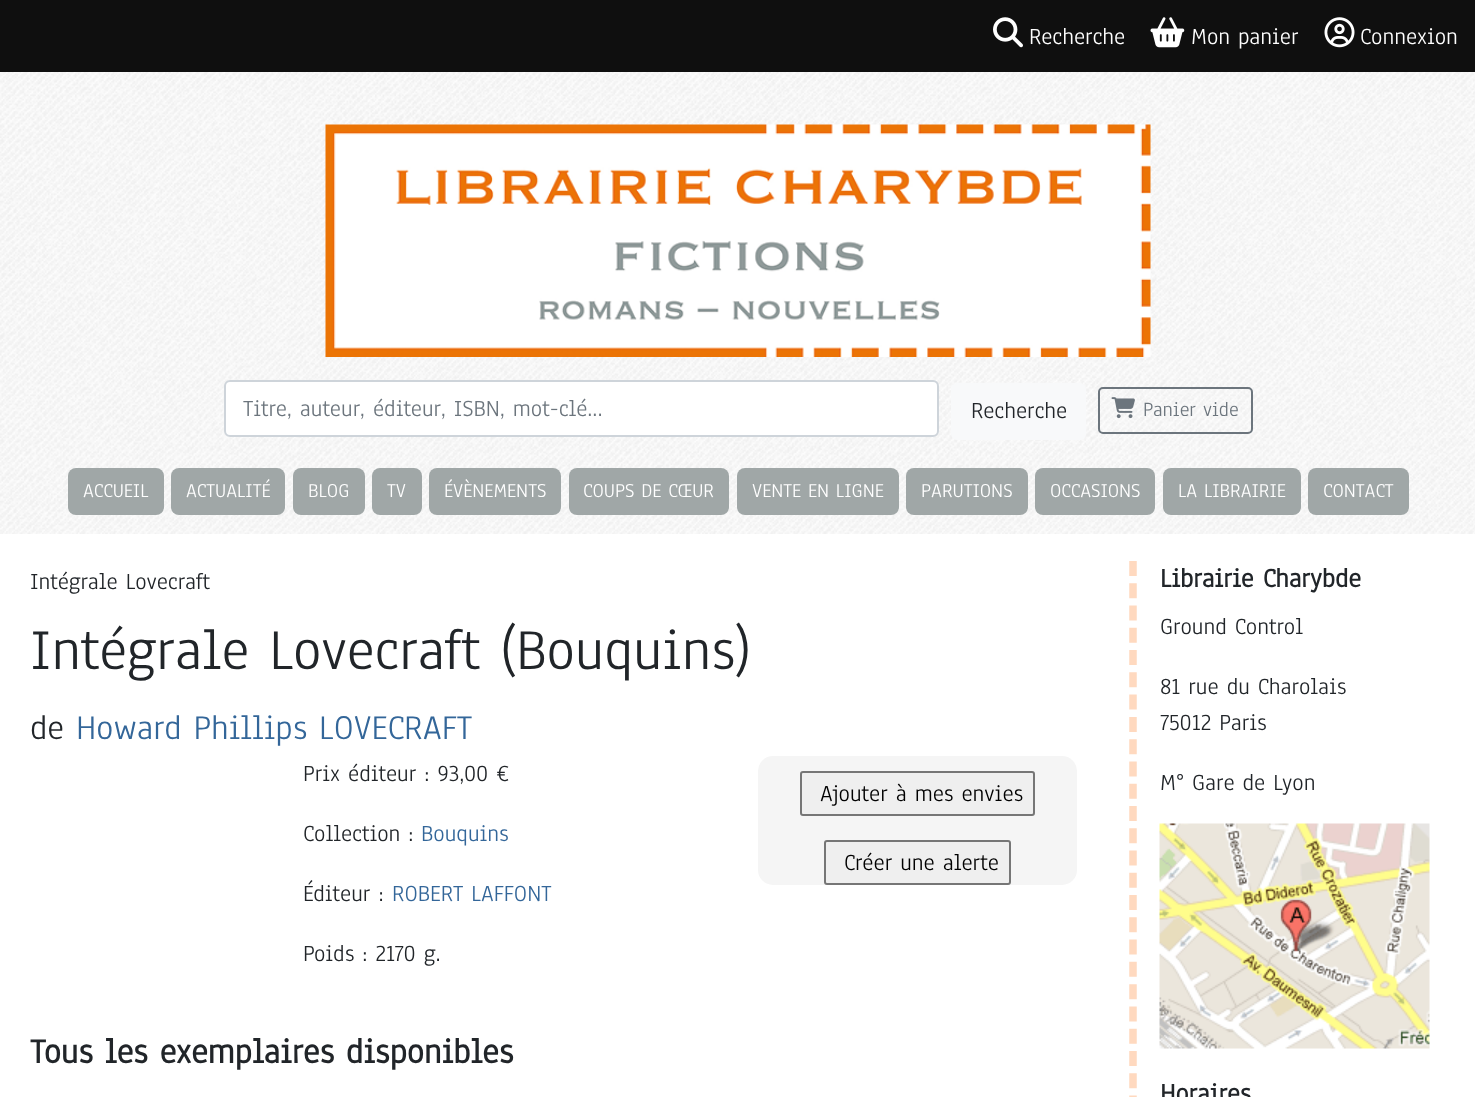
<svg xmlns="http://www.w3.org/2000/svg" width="1475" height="1097">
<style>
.a{font:24px Anaheim;fill:#fff}
.b{font:24px Anaheim;fill:#6c757d}
.c{font:24px Anaheim;fill:#212529}
.d{font:21px Anaheim;fill:#6c757d}
.e{font:20.5px Anaheim;fill:#fff}
.f{font:60px Anaheim;fill:#212529}
.g{font:36px Anaheim;fill:#212529}
.h{font:36px Anaheim;fill:#369}
.i{font:24px Anaheim;fill:#369}
.j{font:24px Anaheim;fill:#000}
.k{font:bold 36px Anaheim;fill:#212529}
.l{font:bold 27.5px Anaheim;fill:#212529}
</style>
<rect width="100%" height="100%" fill="#fff"/>
<image href="1.png" x="0" y="72" width="1475" height="462"/>
<path fill="#0f0f0f" d="M0 0h1475v72H0z"/>
<image href="2.png" x="993" y="17" width="30" height="31"/>
<image href="3.png" x="1150" y="17" width="35" height="31"/>
<image href="4.png" x="1324" y="17" width="31" height="31"/>
<image href="5.png" x="325" y="124" width="826" height="233"/>
<rect fill="#fff" stroke="#ced4da" stroke-width="2" x="225" y="381" width="713" height="55" rx="5"/>
<rect fill="#f8f9fa" x="951" y="383" width="135" height="57" rx="6"/>
<rect fill="none" stroke="#6c757d" stroke-width="2" x="1099" y="388" width="153" height="45" rx="4"/>
<image href="6.png" x="1111" y="397" width="24" height="22"/>
<rect fill="#a0a7a7" x="68" y="468" width="96" height="47" rx="8"/>
<rect fill="#a0a7a7" x="171" y="468" width="114" height="47" rx="8"/>
<rect fill="#a0a7a7" x="293" y="468" width="72" height="47" rx="8"/>
<rect fill="#a0a7a7" x="372" y="468" width="50" height="47" rx="8"/>
<rect fill="#a0a7a7" x="429" y="468" width="132" height="47" rx="8"/>
<rect fill="#a0a7a7" x="569" y="468" width="160" height="47" rx="8"/>
<rect fill="#a0a7a7" x="737" y="468" width="162" height="47" rx="8"/>
<rect fill="#a0a7a7" x="906" y="468" width="122" height="47" rx="8"/>
<rect fill="#a0a7a7" x="1035" y="468" width="120" height="47" rx="8"/>
<rect fill="#a0a7a7" x="1163" y="468" width="138" height="47" rx="8"/>
<rect fill="#a0a7a7" x="1308" y="468" width="101" height="47" rx="8"/>
<rect fill="#f5f5f5" x="758" y="756" width="319" height="129" rx="15"/>
<rect fill="#efefef" stroke="#767676" stroke-width="2" x="801" y="772" width="233" height="43" rx="2"/>
<rect fill="#efefef" stroke="#767676" stroke-width="2" x="825" y="841" width="185" height="43" rx="2"/>
<path fill="none" stroke="#ffd9bf" stroke-width="7.5" stroke-dasharray="15 7.27" d="M1133 561v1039.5"/>
<image href="7.png" x="1159" y="823" width="271" height="226"/>
<text class="a" x="1029" y="44">Recherche</text>
<text class="a" x="1191" y="44">Mon panier</text>
<text class="a" x="1360" y="44">Connexion</text>
<text class="b" x="243" y="416">Titre, auteur, éditeur, ISBN, mot-clé...</text>
<text class="c" x="971" y="418">Recherche</text>
<text class="d" x="1143" y="416">Panier vide</text>
<text class="e" x="83" y="497">ACCUEIL</text>
<text class="e" x="186" y="497">ACTUALITÉ</text>
<text class="e" x="308" y="497">BLOG</text>
<text class="e" x="387" y="497">TV</text>
<text class="e" x="444" y="497">ÉVÈNEMENTS</text>
<text class="e" x="583" y="497">COUPS DE CŒUR</text>
<text class="e" x="752" y="497">VENTE EN LIGNE</text>
<text class="e" x="921" y="497">PARUTIONS</text>
<text class="e" x="1050" y="497">OCCASIONS</text>
<text class="e" x="1178" y="497">LA LIBRAIRIE</text>
<text class="e" x="1323" y="497">CONTACT</text>
<text class="c" x="30" y="589">Intégrale Lovecraft</text>
<text class="f" x="30" y="669">Intégrale Lovecraft (Bouquins)</text>
<text class="g" x="30" y="739">de</text>
<text class="h" x="76" y="739">Howard Phillips LOVECRAFT</text>
<text class="c" x="303" y="781">Prix éditeur : 93,00 €</text>
<text class="c" x="303" y="841">Collection :</text>
<text class="i" x="421" y="841">Bouquins</text>
<text class="c" x="303" y="901">Éditeur :</text>
<text class="i" x="392" y="901">ROBERT LAFFONT</text>
<text class="c" x="303" y="961">Poids : 2170 g.</text>
<text class="j" x="820" y="801">Ajouter à mes envies</text>
<text class="j" x="844" y="870">Créer une alerte</text>
<text class="k" x="30" y="1063">Tous les exemplaires disponibles</text>
<text class="l" x="1160" y="587">Librairie Charybde</text>
<text class="c" x="1160" y="634">Ground Control</text>
<text class="c" x="1160" y="694">81 rue du Charolais</text>
<text class="c" x="1160" y="730">75012 Paris</text>
<text class="c" x="1160" y="790">M° Gare de Lyon</text>
<text class="l" x="1160" y="1102">Horaires</text>
</svg>
